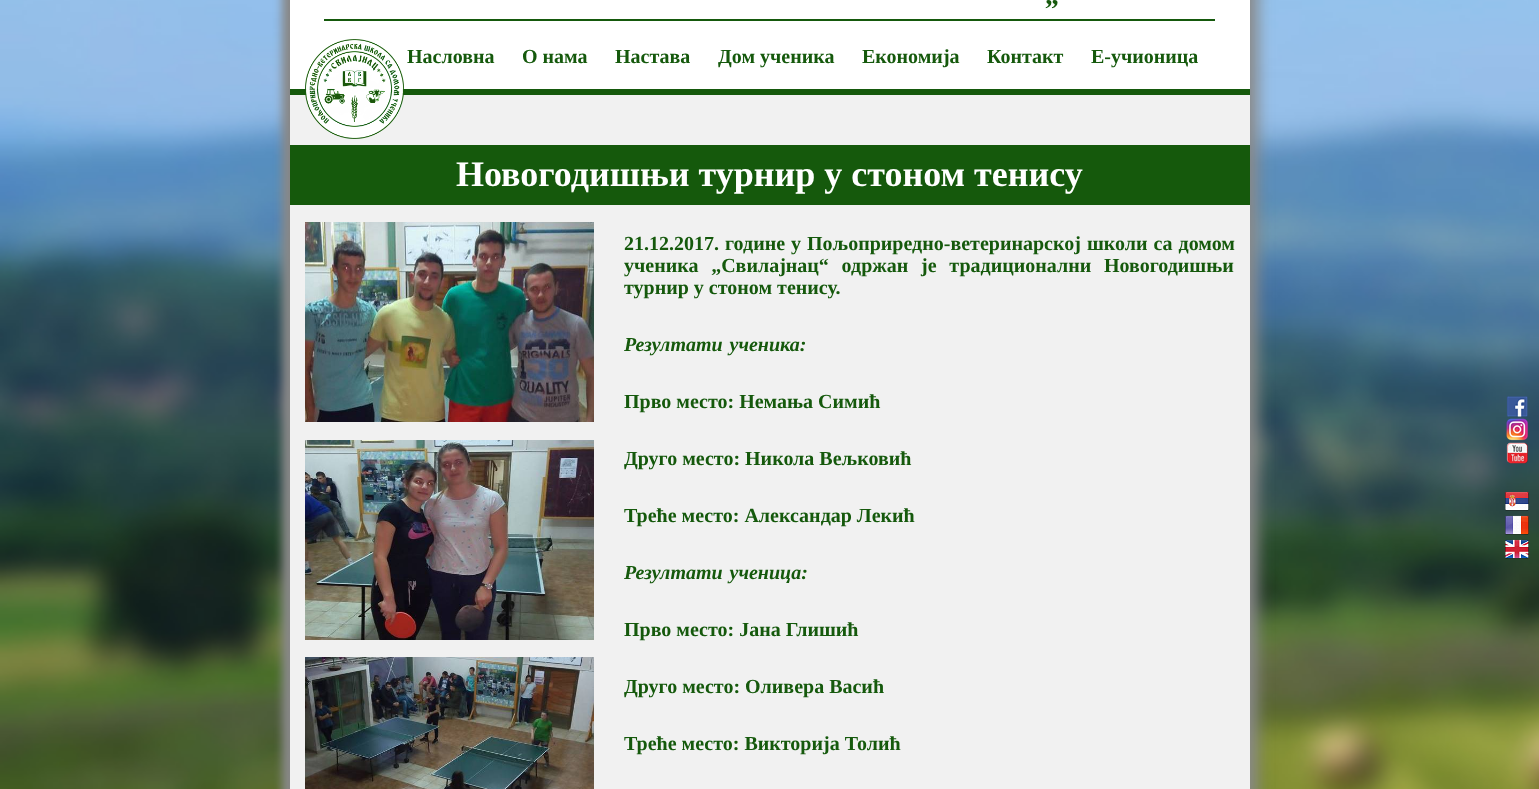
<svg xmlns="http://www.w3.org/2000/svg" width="1539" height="789">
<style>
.a{font:bold 28px Liberation Serif;fill:#15590c}
.b{font:bold 20px Liberation Serif;fill:#15590c}
.c{font:bold 36px Liberation Serif;fill:#fff}
.d{font:italic bold 20px Liberation Serif;fill:#15590c}
</style>
<rect width="100%" height="100%" fill="#fff"/>
<image href="1.png" x="0" y="0" width="1539" height="789"/>
<path fill="#888" filter="blur(4px)" d="M282 -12h952v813H282z"/>
<path fill="#888" filter="blur(7.5px)" d="M306 -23h952v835H306z"/>
<path fill="#f1f1f1" d="M290 95h960v694H290z"/>
<path fill="#fff" d="M290 0h960v89H290z"/>
<path fill="#15590c" d="M290 89h960v6H290z"/>
<path fill="#15590c" d="M324 19h891v2H324z"/>
<image href="2.png" x="305" y="39" width="99" height="100"/>
<path fill="#15590c" d="M290 145h960v60H290z"/>
<image href="3.png" x="305" y="222" width="289" height="200"/>
<image href="4.png" x="305" y="440" width="289" height="200"/>
<image href="5.png" x="305" y="657" width="289" height="132"/>
<image href="6.png" x="1506" y="396" width="22" height="21"/>
<image href="7.png" x="1506" y="418" width="22" height="23"/>
<image href="8.png" x="1506" y="442" width="22" height="22"/>
<image href="9.png" x="1505" y="492" width="24" height="19"/>
<image href="10.png" x="1505" y="515" width="24" height="20"/>
<image href="11.png" x="1505" y="539" width="24" height="20"/>
<text class="a" x="1045" y="4">„</text>
<text class="b" x="407" y="63">Насловна</text>
<text class="b" x="522" y="63">О нама</text>
<text class="b" x="615" y="63">Настава</text>
<text class="b" x="718" y="63">Дом ученика</text>
<text class="b" x="862" y="63">Економија</text>
<text class="b" x="987" y="63">Контакт</text>
<text class="b" x="1091" y="63">Е-учионица</text>
<text class="c" x="456" y="186">Новогодишњи турнир у стоном тенису</text>
<text class="b" x="624" y="250" word-spacing="1">21.12.2017. године у Пољоприредно-ветеринарској школи са домом</text>
<text class="b" x="624" y="272" word-spacing="7.75">ученика „Свилајнац“ одржан је традиционални Новогодишњи</text>
<text class="b" x="624" y="294">турнир у стоном тенису.</text>
<text class="d" x="624" y="351" word-spacing="2">Резултати ученика:</text>
<text class="b" x="624" y="408">Прво место: Немања Симић</text>
<text class="b" x="624" y="465">Друго место: Никола Вељковић</text>
<text class="b" x="624" y="522">Треће место: Александар Лекић</text>
<text class="d" x="624" y="579" word-spacing="2">Резултати ученица:</text>
<text class="b" x="624" y="636">Прво место: Јана Глишић</text>
<text class="b" x="624" y="693">Друго место: Оливера Васић</text>
<text class="b" x="624" y="750">Треће место: Викторија Толић</text>
</svg>
